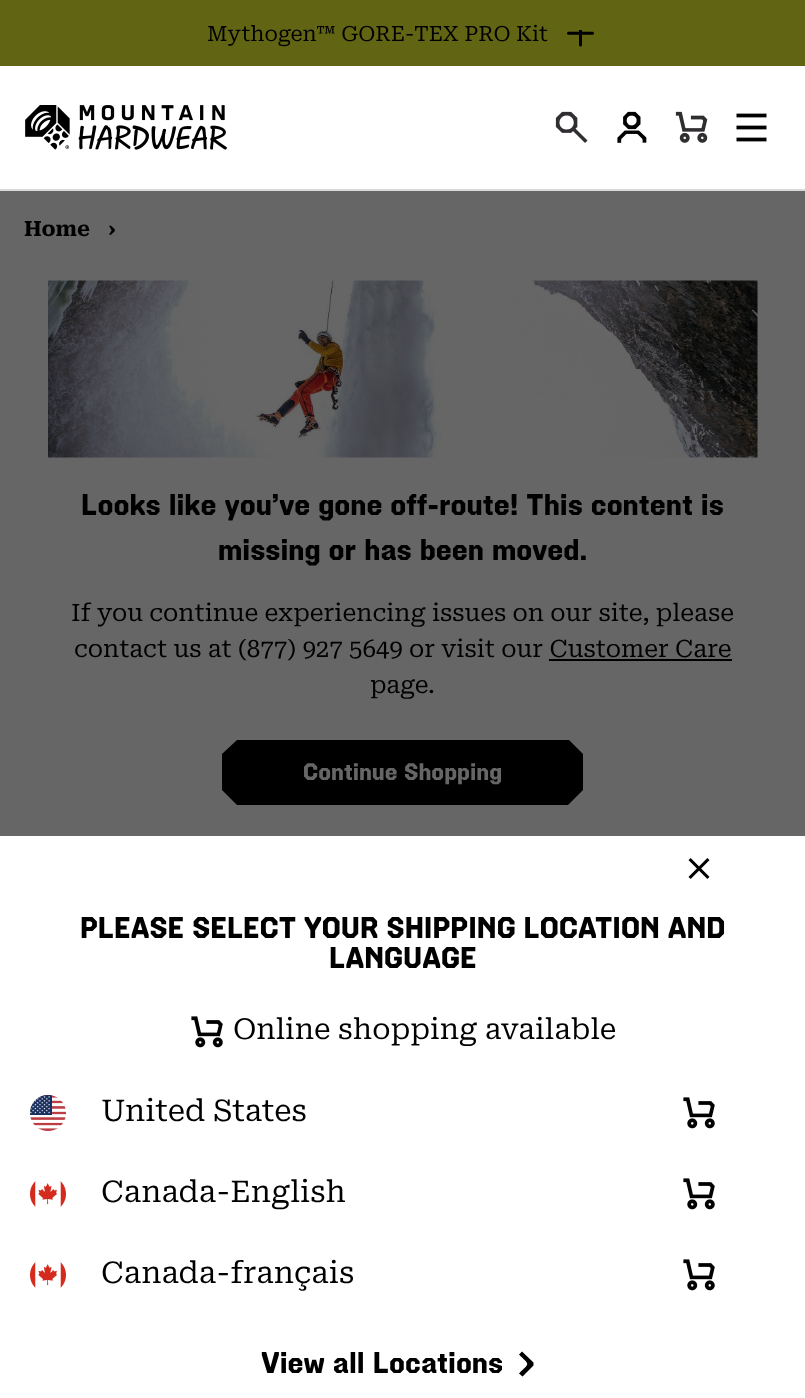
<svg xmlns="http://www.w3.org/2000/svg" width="805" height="1398">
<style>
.a{font:21px Roboto Serif;fill:#000}
.b{font:bold 21px Roboto Serif;fill:#000}
.c{font:bold 30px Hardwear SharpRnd;fill:#000}
.d{font:24px Roboto Serif;fill:#000}
.e{font:bold 24px Hardwear SharpRnd;fill:#666}
.f{font:28.75px Roboto Serif;fill:#000}
.g{font:30px Roboto Serif;fill:#000}
</style>
<rect width="100%" height="100%" fill="#666"/>
<path fill="#616513" d="M0 0h805v66H0z"/>
<image href="1.png" x="567" y="30" width="27" height="17"/>
<path fill="#dad8d8" d="M0 189v2h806v-123v121z"/>
<path fill="#fff" d="M0 66h805v123H0z"/>
<image href="2.png" x="25" y="105" width="202" height="45"/>
<image href="3.png" x="555" y="111" width="33" height="32"/>
<image href="4.png" x="617" y="111" width="30" height="32"/>
<image href="5.png" x="675" y="111" width="33" height="32"/>
<image href="6.png" x="736" y="113" width="31" height="29"/>
<image href="7.png" x="48" y="280" width="710" height="178"/>
<path fill="#000" d="M549 659h183v2H549z"/>
<path fill="#000" d="M222 754v36l15 15h331l15-15v-36l-14-14h-332z"/>
<path fill="#fff" d="M0 836h805v562H0z"/>
<image href="8.png" x="688" y="858" width="22" height="21"/>
<image href="9.png" x="191" y="1016" width="32" height="32"/>
<image href="10.png" x="30" y="1095" width="36" height="36"/>
<image href="9.png" x="683" y="1097" width="32" height="32"/>
<image href="11.png" x="30" y="1180" width="36" height="28"/>
<image href="9.png" x="683" y="1178" width="32" height="32"/>
<image href="11.png" x="30" y="1261" width="36" height="28"/>
<image href="9.png" x="683" y="1259" width="32" height="32"/>
<path fill="#000" d="M519 1373.5c11-11 11-8 0-19l3-3l11.5 11v3l-11 11z"/>
<text class="a" x="207" y="41">Mythogen™ GORE-TEX PRO Kit</text>
<text class="b" x="24" y="236">Home</text>
<text class="b" x="108" y="236">›</text>
<text class="c" x="81" y="515">Looks like you’ve gone off-route! This content is</text>
<text class="c" x="218" y="560">missing or has been moved.</text>
<text class="d" x="71" y="621">If you continue experiencing issues on our site, please</text>
<text class="d" x="74" y="657">contact us at (877) 927 5649 or visit our Customer Care</text>
<text class="d" x="370" y="693">page.</text>
<text class="e" x="303" y="780">Continue Shopping</text>
<text class="c" x="80" y="938">PLEASE SELECT YOUR SHIPPING LOCATION AND</text>
<text class="c" x="329" y="968">LANGUAGE</text>
<text class="f" x="233" y="1039">Online shopping available</text>
<text class="g" x="101" y="1121">United States</text>
<text class="g" x="101" y="1202">Canada-English</text>
<text class="g" x="101" y="1283">Canada-français</text>
<text class="c" x="261" y="1373">View all Locations</text>
</svg>
